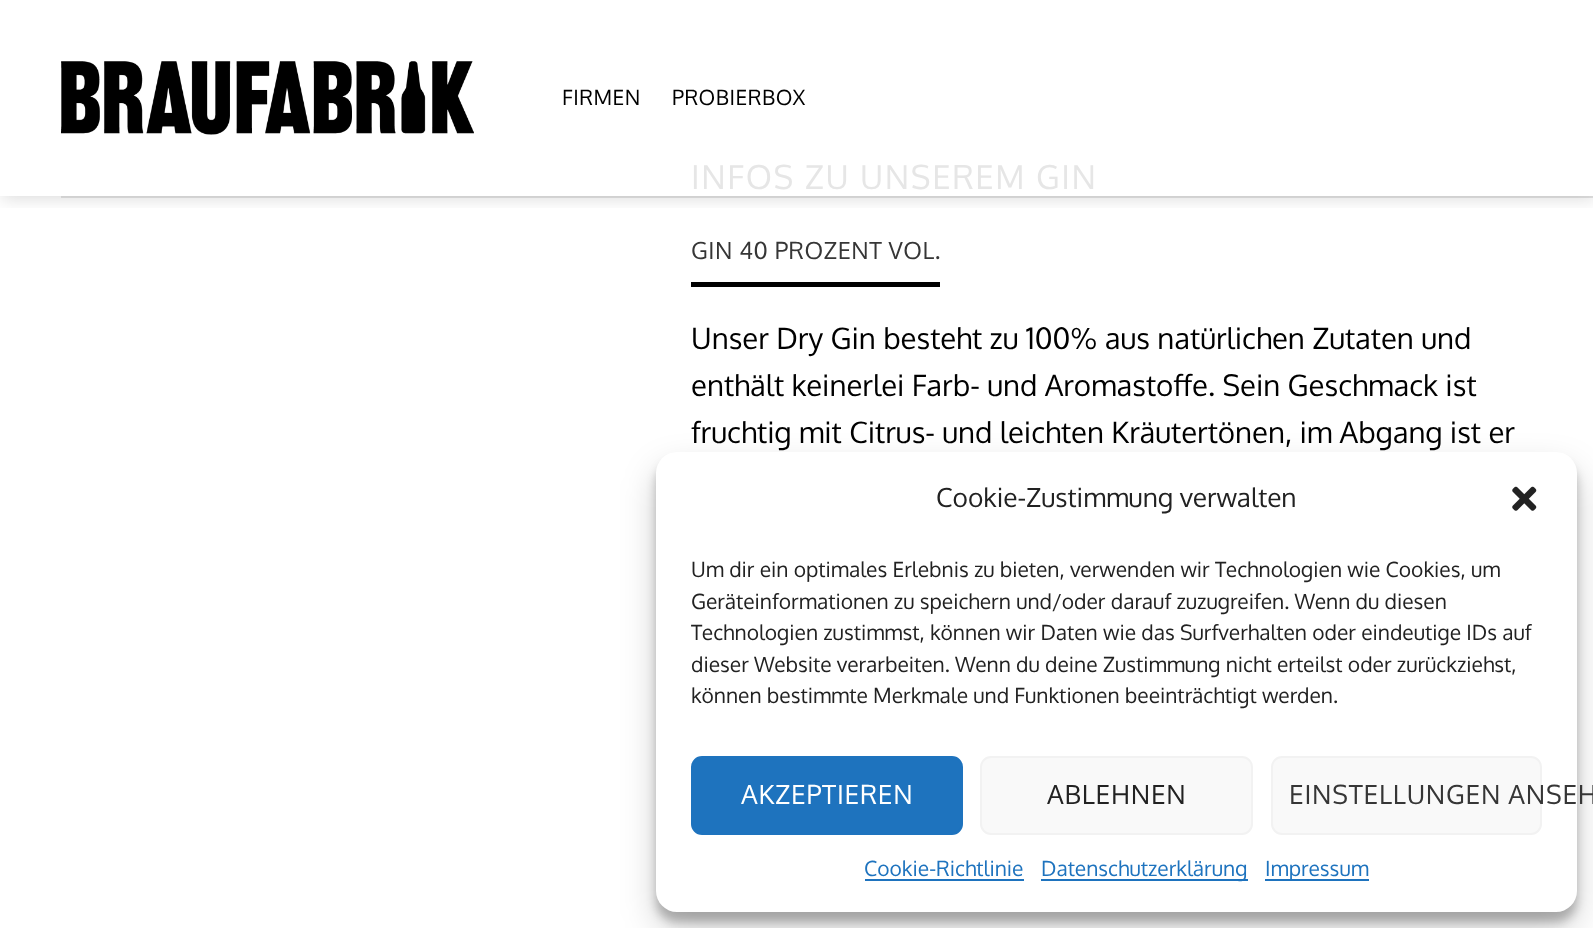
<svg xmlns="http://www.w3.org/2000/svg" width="1593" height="928">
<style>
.a{font:21px Oxygen;letter-spacing:0.5px;fill:#000}
.b{font:33px Oxygen;letter-spacing:1.6px;fill:#e6e6e6}
.c{font:23.5px Oxygen;letter-spacing:0.5px;fill:#363636}
.d{font:29.4px Oxygen;fill:#000}
.e{font:26.25px Oxygen;fill:#222}
.f{font:21px Oxygen;fill:#222}
.g{font:26.25px Oxygen;letter-spacing:0.75px;fill:#fff}
.h{font:26.25px Oxygen;letter-spacing:0.75px;fill:#222}
.i{font:26.25px Oxygen;letter-spacing:0.75px;fill:#363636}
.j{font:21px Oxygen;fill:#1e73be}
</style>
<defs>
<clipPath id="clip1"><path d="M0 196h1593v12H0z"/></clipPath>
</defs>
<rect width="100%" height="100%" fill="#fff"/>
<g clip-path="url(#clip1)">
<path fill="#00000026" filter="blur(9px)" d="M2 2h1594v196H2z"/>
</g>
<image href="1.png" x="61" y="61" width="413" height="74"/>
<path fill="#0000001a" d="M61 196h1532v2H61z"/>
<path fill="#000" d="M691 282h249v5H691z"/>
<rect fill="#0000003b" filter="blur(5px)" x="656" y="462" width="921" height="460" rx="21"/>
<rect fill="#00000030" filter="blur(17.5px)" x="656" y="469" width="921" height="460" rx="21"/>
<rect fill="#fff" x="656" y="452" width="921" height="460" rx="21"/>
<image href="2.png" x="1512" y="486" width="25" height="25"/>
<rect fill="#1e73be" stroke="#1e73be" stroke-width="2" x="692" y="757" width="270" height="77" rx="10"/>
<rect fill="#f9f9f9" stroke="#f2f2f2" stroke-width="2" x="981" y="757" width="271" height="77" rx="10"/>
<rect fill="#f9f9f9" stroke="#f2f2f2" stroke-width="2" x="1272" y="757" width="269" height="77" rx="10"/>
<path fill="#1e73be" d="M865 879h159v2H865z"/>
<path fill="#1e73be" d="M1041 879h207v2H1041z"/>
<path fill="#1e73be" d="M1265 879h104v2H1265z"/>
<text class="a" x="562" y="105">FIRMEN</text>
<text class="a" x="672" y="105">PROBIERBOX</text>
<text class="b" x="691" y="189">INFOS ZU UNSEREM GIN</text>
<text class="c" x="691" y="259">GIN 40 PROZENT VOL.</text>
<text class="d" x="691" y="349">Unser Dry Gin besteht zu 100% aus natürlichen Zutaten und</text>
<text class="d" x="691" y="396">enthält keinerlei Farb- und Aromastoffe. Sein Geschmack ist</text>
<text class="d" x="691" y="443">fruchtig mit Citrus- und leichten Kräutertönen, im Abgang ist er</text>
<text class="e" x="936" y="507">Cookie-Zustimmung verwalten</text>
<text class="f" x="691" y="577">Um dir ein optimales Erlebnis zu bieten, verwenden wir Technologien wie Cookies, um</text>
<text class="f" x="691" y="609">Geräteinformationen zu speichern und/oder darauf zuzugreifen. Wenn du diesen</text>
<text class="f" x="691" y="640">Technologien zustimmst, können wir Daten wie das Surfverhalten oder eindeutige IDs auf</text>
<text class="f" x="691" y="672">dieser Website verarbeiten. Wenn du deine Zustimmung nicht erteilst oder zurückziehst,</text>
<text class="f" x="691" y="703">können bestimmte Merkmale und Funktionen beeinträchtigt werden.</text>
<text class="g" x="741" y="804">AKZEPTIEREN</text>
<text class="h" x="1047" y="804">ABLEHNEN</text>
<text class="i" x="1289" y="804">EINSTELLUNGEN ANSEH</text>
<text class="j" x="864" y="876">Cookie-Richtlinie</text>
<text class="j" x="1041" y="876">Datenschutzerklärung</text>
<text class="j" x="1265" y="876">Impressum</text>
</svg>
